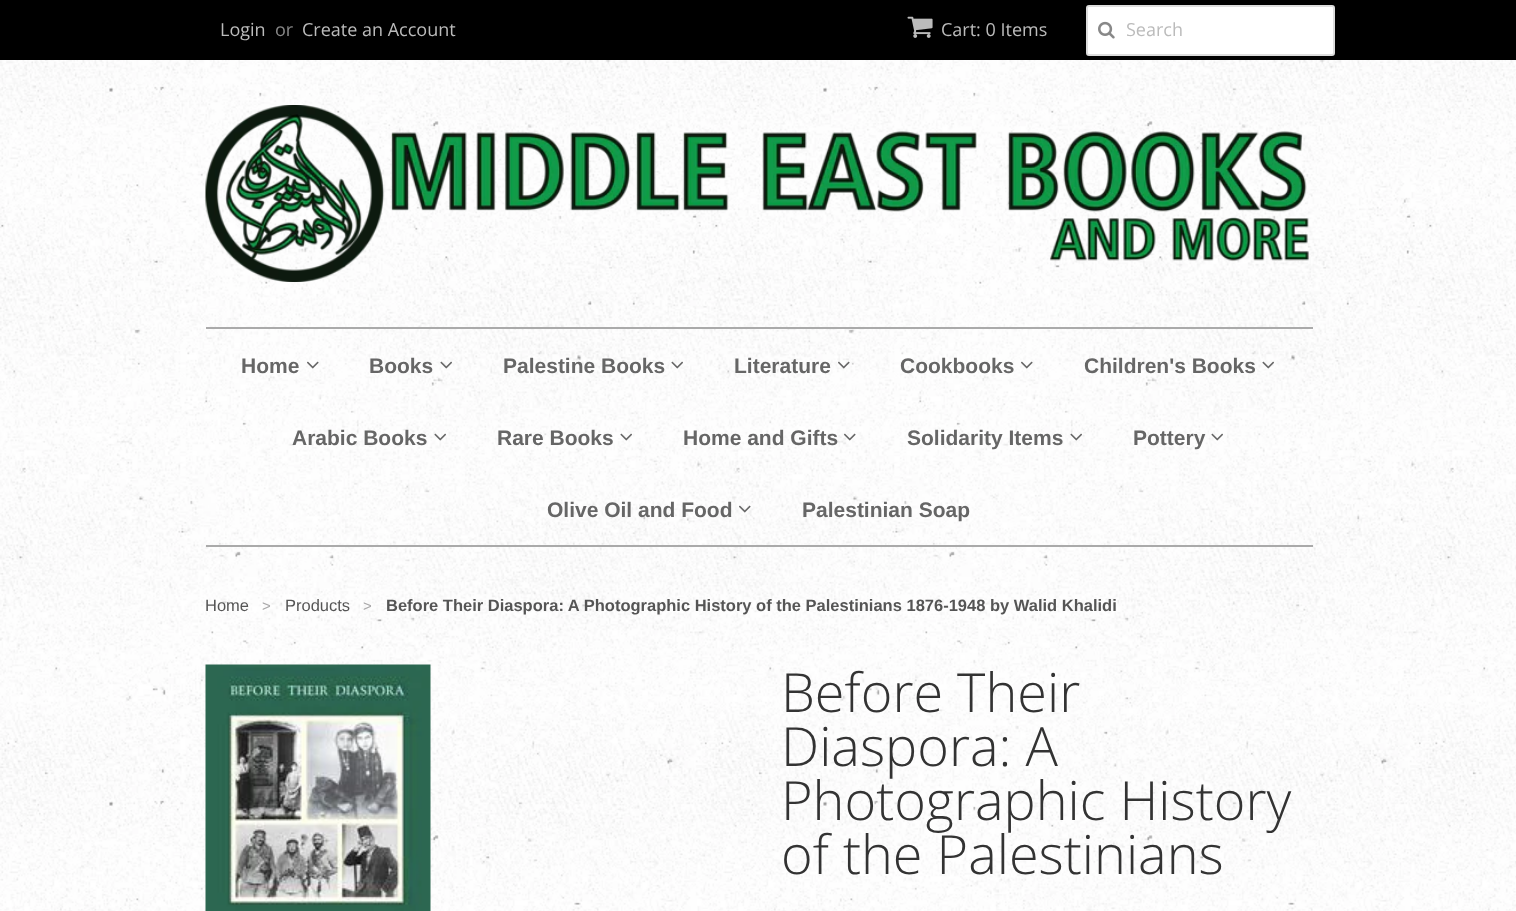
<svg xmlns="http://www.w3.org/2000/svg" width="1516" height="911">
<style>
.a{font:18px Open Sans;fill:#bbb}
.b{font:18px Open Sans;fill:#888}
.c{font:bold 21px Liberation Sans;fill:#666}
.d{font:16.5px Liberation Sans;fill:#555}
.e{font:15px Liberation Sans;fill:#a9a8a9}
.f{font:bold 16.5px Liberation Sans;fill:#555}
.g{font:300 54px Open Sans;fill:#333}
</style>
<defs>
<clipPath id="clip1"><path d="M1127 17h201v25H1127z"/></clipPath>
</defs>
<rect width="100%" height="100%" fill="#fff"/>
<image href="1.png" x="0" y="60" width="1516" height="851"/>
<path fill="#000" d="M0 0h1516v60H0z"/>
<image href="2.png" x="907" y="16" width="26" height="22"/>
<rect fill="#fff" stroke="#ddd" stroke-width="2" x="1087" y="6" width="247" height="49" rx="2"/>
<image href="3.png" x="1098" y="21" width="17" height="18"/>
<image href="4.png" x="205" y="105" width="1104" height="177"/>
<path fill="#aaa" d="M206 327h1107v2H206z"/>
<path fill="#aaa" d="M206 545h1107v2H206z"/>
<image href="5.png" x="307" y="361" width="12" height="8"/>
<image href="6.png" x="440" y="361" width="12" height="8"/>
<image href="7.png" x="671" y="361" width="12" height="8"/>
<image href="8.png" x="838" y="361" width="12" height="8"/>
<image href="5.png" x="1021" y="361" width="12" height="8"/>
<image href="9.png" x="1262" y="361" width="12" height="8"/>
<image href="10.png" x="434" y="433" width="12" height="8"/>
<image href="11.png" x="620" y="433" width="12" height="8"/>
<image href="12.png" x="844" y="433" width="12" height="8"/>
<image href="13.png" x="1070" y="433" width="12" height="8"/>
<image href="14.png" x="1211" y="433" width="12" height="8"/>
<image href="15.png" x="739" y="505" width="12" height="8"/>
<image href="16.png" x="205" y="664" width="226" height="247"/>
<text class="a" x="220" y="36">Login</text>
<text class="b" x="275" y="36">or</text>
<text class="a" x="302" y="36">Create an Account</text>
<text class="a" x="941" y="36">Cart: 0 Items</text>
<g clip-path="url(#clip1)">
<text class="a" x="1126" y="36">Search</text>
</g>
<text class="c" x="241" y="373">Home</text>
<text class="c" x="369" y="373">Books</text>
<text class="c" x="503" y="373">Palestine Books</text>
<text class="c" x="734" y="373">Literature</text>
<text class="c" x="900" y="373">Cookbooks</text>
<text class="c" x="1084" y="373">Children's Books</text>
<text class="c" x="292" y="445">Arabic Books</text>
<text class="c" x="497" y="445">Rare Books</text>
<text class="c" x="683" y="445">Home and Gifts</text>
<text class="c" x="907" y="445">Solidarity Items</text>
<text class="c" x="1133" y="445">Pottery</text>
<text class="c" x="547" y="517">Olive Oil and Food</text>
<text class="c" x="802" y="517">Palestinian Soap</text>
<text class="d" x="205" y="611">Home</text>
<text class="e" x="262" y="611">&gt;</text>
<text class="d" x="285" y="611">Products</text>
<text class="e" x="363" y="611">&gt;</text>
<text class="f" x="386" y="611">Before Their Diaspora: A Photographic History of the Palestinians 1876-1948 by Walid Khalidi</text>
<text class="g" x="781" y="712">Before Their</text>
<text class="g" x="781" y="766">Diaspora: A</text>
<text class="g" x="781" y="820">Photographic History</text>
<text class="g" x="781" y="874">of the Palestinians</text>
</svg>
